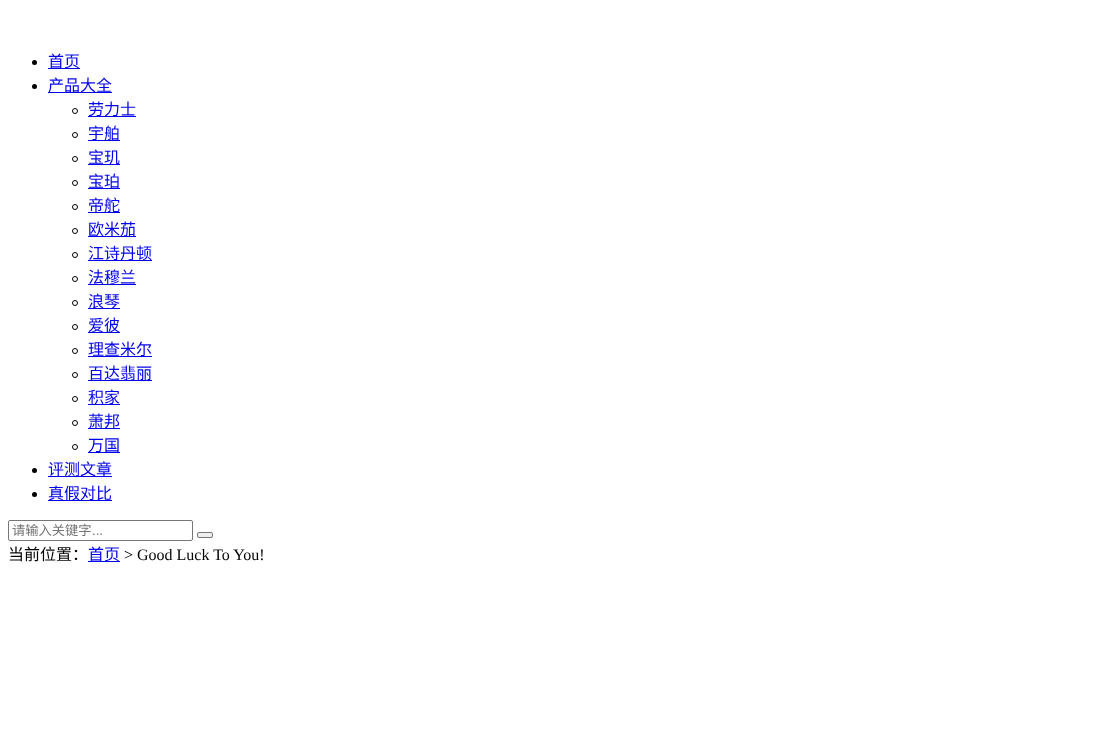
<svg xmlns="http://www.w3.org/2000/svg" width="1116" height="741">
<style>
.a{font:16px Noto Sans CJK SC;fill:#00e}
.b{font:13.25px Noto Sans CJK SC;fill:#757575}
.c{font:13.25px Liberation Sans;fill:#757575}
.d{font:16px Noto Sans CJK SC;fill:#000}
.e{font:16px Liberation Serif;fill:#000}
</style>
<rect width="100%" height="100%" fill="#fff"/>
<circle fill="#000" cx="34.5" cy="62.5" r="2.5"/>
<path fill="#00e" d="M48 68h32v1H48z"/>
<circle fill="#000" cx="34.5" cy="86.5" r="2.5"/>
<path fill="#00e" d="M48 92h64v1H48z"/>
<circle fill="none" stroke="#000" cx="75" cy="111" r="2.5"/>
<path fill="#00e" d="M88 116h48v1H88z"/>
<circle fill="none" stroke="#000" cx="75" cy="135" r="2.5"/>
<path fill="#00e" d="M88 140h32v1H88z"/>
<circle fill="none" stroke="#000" cx="75" cy="159" r="2.5"/>
<path fill="#00e" d="M88 164h32v1H88z"/>
<circle fill="none" stroke="#000" cx="75" cy="183" r="2.5"/>
<path fill="#00e" d="M88 188h32v1H88z"/>
<circle fill="none" stroke="#000" cx="75" cy="207" r="2.5"/>
<path fill="#00e" d="M88 212h32v1H88z"/>
<circle fill="none" stroke="#000" cx="75" cy="231" r="2.5"/>
<path fill="#00e" d="M88 236h48v1H88z"/>
<circle fill="none" stroke="#000" cx="75" cy="255" r="2.5"/>
<path fill="#00e" d="M88 260h64v1H88z"/>
<circle fill="none" stroke="#000" cx="75" cy="279" r="2.5"/>
<path fill="#00e" d="M88 284h48v1H88z"/>
<circle fill="none" stroke="#000" cx="75" cy="303" r="2.5"/>
<path fill="#00e" d="M88 308h32v1H88z"/>
<circle fill="none" stroke="#000" cx="75" cy="327" r="2.5"/>
<path fill="#00e" d="M88 332h32v1H88z"/>
<circle fill="none" stroke="#000" cx="75" cy="351" r="2.5"/>
<path fill="#00e" d="M88 356h64v1H88z"/>
<circle fill="none" stroke="#000" cx="75" cy="375" r="2.5"/>
<path fill="#00e" d="M88 380h64v1H88z"/>
<circle fill="none" stroke="#000" cx="75" cy="399" r="2.5"/>
<path fill="#00e" d="M88 404h32v1H88z"/>
<circle fill="none" stroke="#000" cx="75" cy="423" r="2.5"/>
<path fill="#00e" d="M88 428h32v1H88z"/>
<circle fill="none" stroke="#000" cx="75" cy="447" r="2.5"/>
<path fill="#00e" d="M88 452h32v1H88z"/>
<circle fill="#000" cx="34.5" cy="470.5" r="2.5"/>
<path fill="#00e" d="M48 476h64v1H48z"/>
<circle fill="#000" cx="34.5" cy="494.5" r="2.5"/>
<path fill="#00e" d="M48 500h64v1H48z"/>
<rect fill="none" stroke="#767676" x="8.5" y="520.5" width="184" height="20" rx="1.5"/>
<rect fill="#efefef" stroke="#767676" x="197.5" y="532.5" width="15" height="5" rx="1.5"/>
<path fill="#00e" d="M88 561h32v1H88z"/>
<text class="a" x="48" y="67">首页</text>
<text class="a" x="48" y="91">产品大全</text>
<text class="a" x="88" y="115">劳力士</text>
<text class="a" x="88" y="139">宇舶</text>
<text class="a" x="88" y="163">宝玑</text>
<text class="a" x="88" y="187">宝珀</text>
<text class="a" x="88" y="211">帝舵</text>
<text class="a" x="88" y="235">欧米茄</text>
<text class="a" x="88" y="259">江诗丹顿</text>
<text class="a" x="88" y="283">法穆兰</text>
<text class="a" x="88" y="307">浪琴</text>
<text class="a" x="88" y="331">爱彼</text>
<text class="a" x="88" y="355">理查米尔</text>
<text class="a" x="88" y="379">百达翡丽</text>
<text class="a" x="88" y="403">积家</text>
<text class="a" x="88" y="427">萧邦</text>
<text class="a" x="88" y="451">万国</text>
<text class="a" x="48" y="475">评测文章</text>
<text class="a" x="48" y="499">真假对比</text>
<text class="b" x="12" y="535">请输入关键字</text>
<text class="c" x="92" y="535">...</text>
<text class="d" x="8" y="560">当前位置：</text>
<text class="a" x="88" y="560">首页</text>
<text class="e" x="124" y="560">&gt; Good Luck To You!</text>
</svg>
